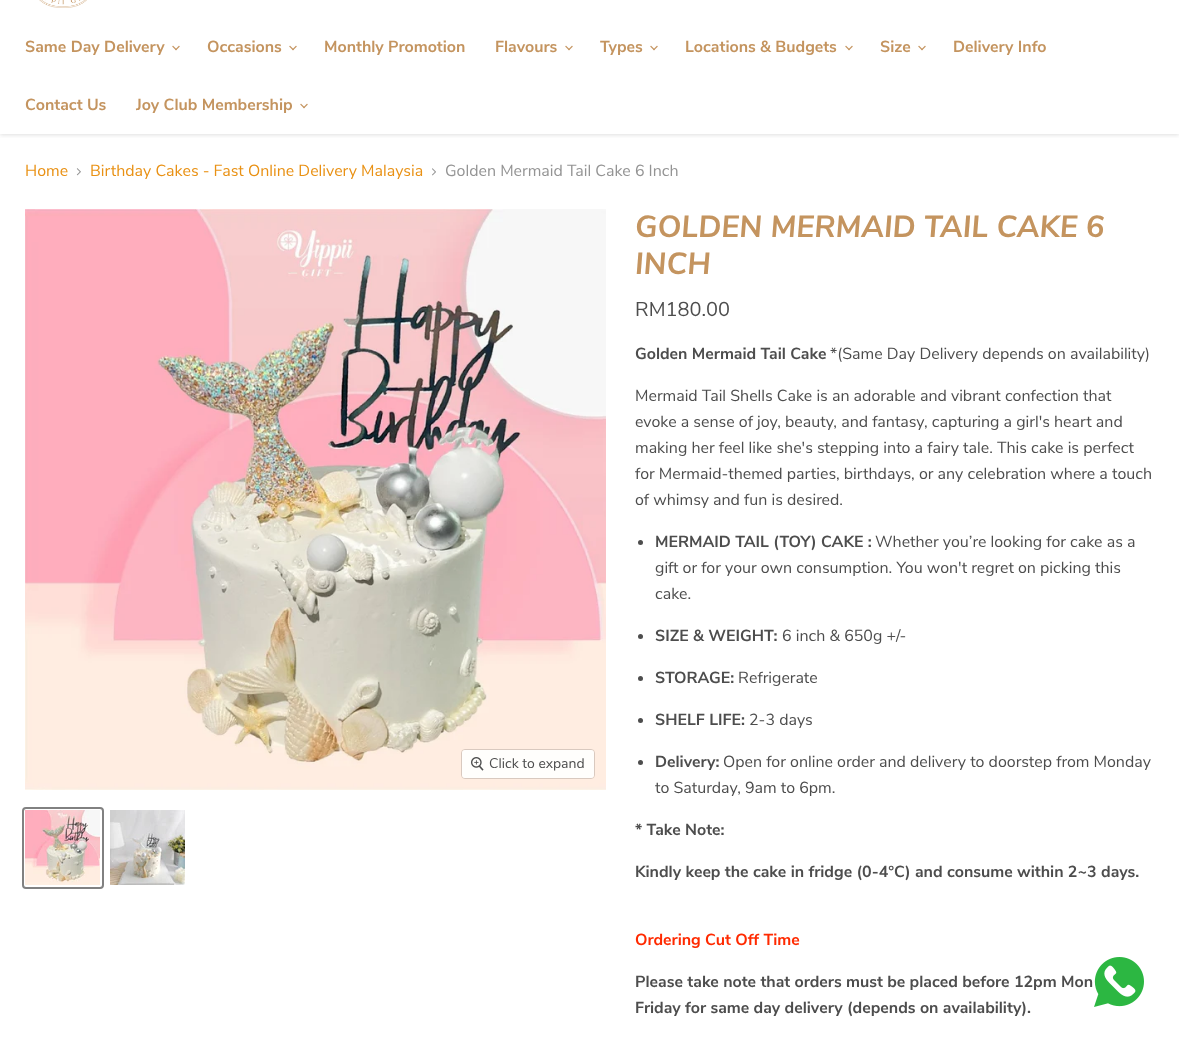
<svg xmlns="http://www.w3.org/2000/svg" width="1179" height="1042">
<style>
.a{font:bold 16px Nunito Sans;fill:#c4945f}
.b{font:16px Nunito Sans;fill:#e99114}
.c{font:16px Nunito Sans;fill:#949494}
.d{font:14px Nunito Sans;fill:#4d4d4d}
.e{font:italic bold 30.6px Nunito Sans;fill:#c4945f}
.f{font:20px Nunito Sans;fill:#4d4d4d}
.g{font:bold 16px Nunito Sans;fill:#4d4d4d}
.h{font:16px Nunito Sans;fill:#4d4d4d}
.i{font:bold 16px Nunito Sans;fill:#ff2a00}
</style>
<defs>
<clipPath id="clip1"><path d="M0 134h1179v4H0z"/></clipPath>
</defs>
<rect width="100%" height="100%" fill="#fff"/>
<g clip-path="url(#clip1)">
<path fill="#80808040" filter="blur(2px)" d="M0 -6h1179v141H0z"/>
</g>
<image href="1.png" x="39" y="0" width="48" height="8"/>
<image href="2.png" x="172" y="45" width="8" height="6"/>
<image href="2.png" x="289" y="45" width="8" height="6"/>
<image href="2.png" x="565" y="45" width="8" height="6"/>
<image href="2.png" x="650" y="45" width="8" height="6"/>
<image href="2.png" x="845" y="45" width="8" height="6"/>
<image href="2.png" x="918" y="45" width="8" height="6"/>
<image href="2.png" x="300" y="103" width="8" height="6"/>
<image href="3.png" x="76" y="168" width="5" height="8"/>
<image href="4.png" x="432" y="168" width="4" height="8"/>
<image href="5.png" x="25" y="209" width="581" height="581"/>
<rect fill="none" stroke="#d9c9bf" x="461.5" y="749.5" width="133" height="29" rx="3.5"/>
<rect fill="#ffffffe6" x="462" y="750" width="132" height="28" rx="3"/>
<image href="6.png" x="471" y="757" width="13" height="14"/>
<rect fill="none" stroke="#818181" stroke-width="2" x="23" y="808" width="80" height="80" rx="3"/>
<image href="7.png" x="25" y="810" width="75" height="75"/>
<image href="8.png" x="110" y="810" width="75" height="75"/>
<circle fill="#4d4d4d" cx="640.5" cy="542.5" r="2.5"/>
<circle fill="#4d4d4d" cx="640.5" cy="636.5" r="2.5"/>
<circle fill="#4d4d4d" cx="640.5" cy="678.5" r="2.5"/>
<circle fill="#4d4d4d" cx="640.5" cy="720.5" r="2.5"/>
<circle fill="#4d4d4d" cx="640.5" cy="762.5" r="2.5"/>
<image href="9.png" x="1094" y="957" width="50" height="50"/>
<text class="a" x="25" y="52">Same Day Delivery</text>
<text class="a" x="207" y="52">Occasions</text>
<text class="a" x="324" y="52">Monthly Promotion</text>
<text class="a" x="495" y="52">Flavours</text>
<text class="a" x="600" y="52">Types</text>
<text class="a" x="685" y="52">Locations &amp; Budgets</text>
<text class="a" x="880" y="52">Size</text>
<text class="a" x="953" y="52">Delivery Info</text>
<text class="a" x="25" y="110">Contact Us</text>
<text class="a" x="136" y="110">Joy Club Membership</text>
<text class="b" x="25" y="176">Home</text>
<text class="b" x="90" y="176">Birthday Cakes - Fast Online Delivery Malaysia</text>
<text class="c" x="445" y="176">Golden Mermaid Tail Cake 6 Inch</text>
<text class="d" x="489" y="768">Click to expand</text>
<text class="e" x="635" y="237">GOLDEN MERMAID TAIL CAKE 6</text>
<text class="e" x="635" y="274">INCH</text>
<text class="f" x="635" y="316">RM180.00</text>
<text class="g" x="635" y="359">Golden Mermaid Tail Cake</text>
<text class="h" x="830" y="359">*(Same Day Delivery depends on availability)</text>
<text class="h" x="635" y="401">Mermaid Tail Shells Cake is an adorable and vibrant confection that</text>
<text class="h" x="635" y="427">evoke a sense of joy, beauty, and fantasy, capturing a girl's heart and</text>
<text class="h" x="635" y="453">making her feel like she's stepping into a fairy tale. This cake is perfect</text>
<text class="h" x="635" y="479">for Mermaid-themed parties, birthdays, or any celebration where a touch</text>
<text class="h" x="635" y="505">of whimsy and fun is desired.</text>
<text class="g" x="655" y="547">MERMAID TAIL (TOY) CAKE :</text>
<text class="h" x="875" y="547">Whether you’re looking for cake as a</text>
<text class="h" x="655" y="573">gift or for your own consumption. You won't regret on picking this</text>
<text class="h" x="655" y="599">cake.</text>
<text class="g" x="655" y="641">SIZE &amp; WEIGHT:</text>
<text class="h" x="782" y="641">6 inch &amp; 650g +/-</text>
<text class="g" x="655" y="683">STORAGE:</text>
<text class="h" x="738" y="683">Refrigerate</text>
<text class="g" x="655" y="725">SHELF LIFE:</text>
<text class="h" x="749" y="725">2-3 days</text>
<text class="g" x="655" y="767">Delivery:</text>
<text class="h" x="723" y="767">Open for online order and delivery to doorstep from Monday</text>
<text class="h" x="655" y="793">to Saturday, 9am to 6pm.</text>
<text class="g" x="635" y="835">* Take Note:</text>
<text class="g" x="635" y="877">Kindly keep the cake in fridge (0-4°C) and consume within 2~3 days.</text>
<text class="i" x="635" y="945">Ordering Cut Off Time</text>
<text class="g" x="635" y="987">Please take note that orders must be placed before 12pm Mon</text>
<text class="g" x="635" y="1013">Friday for same day delivery (depends on availability).</text>
</svg>
